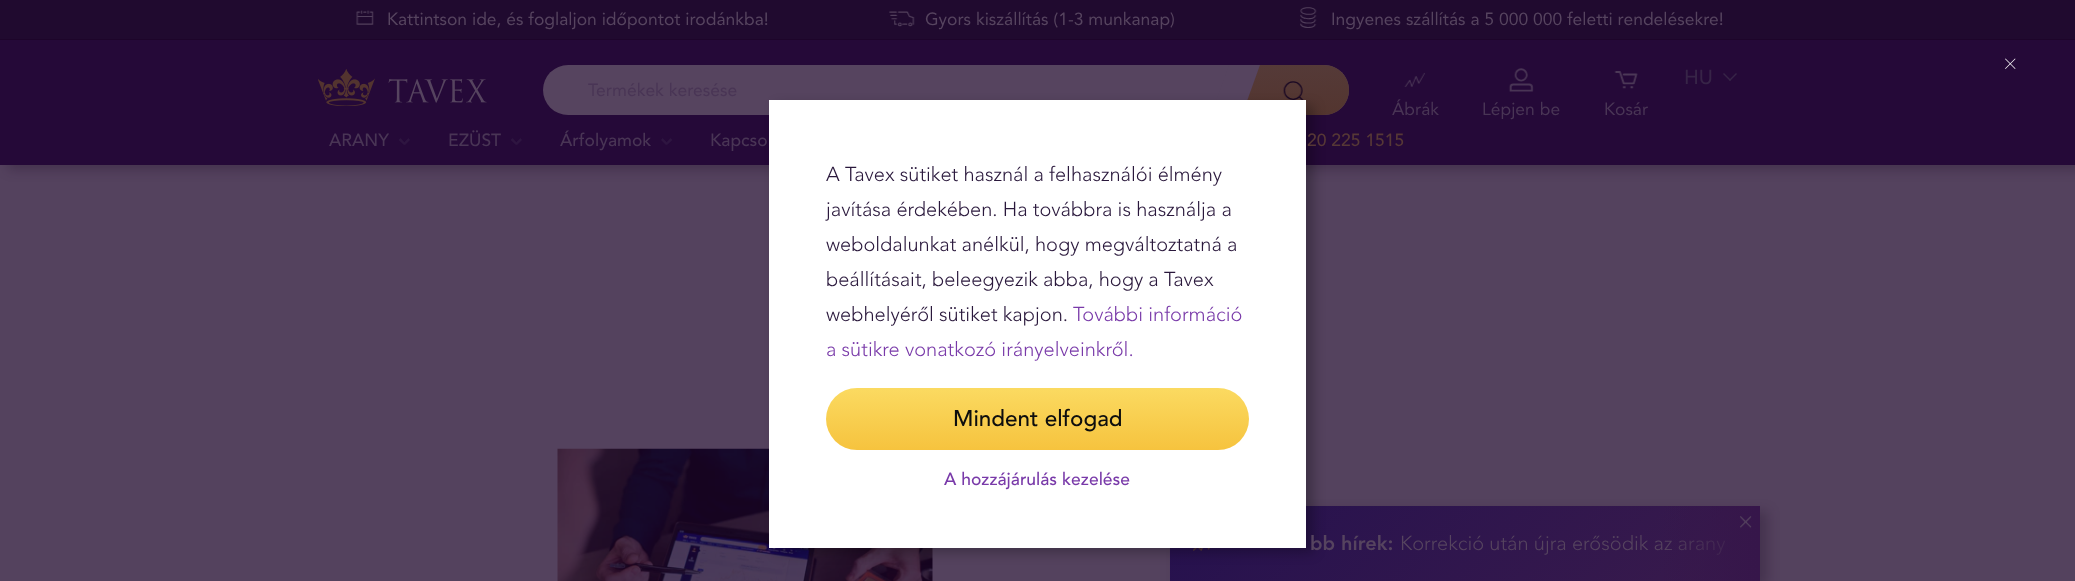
<svg xmlns="http://www.w3.org/2000/svg" width="2075" height="581">
<style>
.a{font:17.5px Avenir;fill:#56445f}
.b{font:500 20px Avenir;fill:#372447}
.c{font:17.5px Avenir;fill:#493555}
.d{font:500 17.5px Avenir;fill:#493555}
.e{font:500 17.5px Avenir;fill:#563836}
.f{font:300 20px Avenir;fill:#2a183c}
.g{font:300 20px Avenir;fill:#793aa9}
.h{font:500 22.5px Avenir;fill:#0e0e0e}
.i{font:500 17.5px Avenir;fill:#793aa9}
.j{font:900 20px Avenir;fill:#56445f}
.k{font:300 20px Avenir;fill:#56445f}
</style>
<defs>
<linearGradient id="g1" gradientUnits="userSpaceOnUse" x1="1294" y1="65" x2="1294" y2="115"><stop offset="0" stop-color="#553a38"/><stop offset="1" stop-color="#53352f"/></linearGradient>
<clipPath id="clip1"><path d="M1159 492h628v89h-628zm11 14h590v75h-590z" clip-rule="evenodd"/></clipPath>
<linearGradient id="g2" gradientUnits="userSpaceOnUse" x1="1299" y1="378" x2="1631" y2="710"><stop offset="0" stop-color="#210b4c" stop-opacity="0.9"/><stop offset="0.07" stop-color="#220c4c" stop-opacity="0.9"/><stop offset="0.14" stop-color="#230d4c" stop-opacity="0.9"/><stop offset="0.21" stop-color="#250e4c" stop-opacity="0.9"/><stop offset="1" stop-color="#36164a" stop-opacity="0.9"/></linearGradient>
<linearGradient id="g3" gradientUnits="userSpaceOnUse" x1="1038" y1="388" x2="1038" y2="450"><stop offset="0" stop-color="#fbda61"/><stop offset="1" stop-color="#f6c33e"/></linearGradient>
<linearGradient id="g4" gradientUnits="userSpaceOnUse" x1="1658" y1="544" x2="1760" y2="544"><stop offset="0" stop-color="#36164a" stop-opacity="0"/><stop offset="0.97" stop-color="#36164a"/></linearGradient>
</defs>
<rect width="100%" height="100%" fill="#54425e"/>
<path fill="#16042040" filter="blur(6px)" d="M8 5h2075v165H8z"/>
<path fill="#200a2f" d="M0 0h2075v39H0z"/>
<path fill="#1d052a" d="M0 39h2075v1H0z"/>
<image href="1.png" x="356" y="10" width="18" height="15"/>
<image href="2.png" x="889" y="11" width="26" height="16"/>
<image href="3.png" x="1300" y="7" width="17" height="21"/>
<path fill="#250938" d="M0 40h2075v125H0z"/>
<image href="4.png" x="318" y="69" width="169" height="37"/>
<path fill="#372447" d="M1729 80l7-7l1 1l-7 7z"/>
<path fill="#372447" d="M1723 74l1-1l7 7l-1 1z"/>
<rect fill="#56445f" x="543" y="65" width="806" height="50" rx="25"/>
<path fill="url(#g1)" d="M1239 65h85c14 0 25 11 25 25c0 14-11 25-25 25h-85z"/>
<path fill="#56445f" d="M1229 65h31l-18 50h-31z"/>
<image href="5.png" x="1283" y="81" width="21" height="19"/>
<image href="6.png" x="1404" y="72" width="22" height="15"/>
<image href="7.png" x="1508" y="68" width="26" height="24"/>
<image href="8.png" x="1614" y="71" width="24" height="18"/>
<path fill="#2e1540" d="M403 143.5l5.5-5.5l1.5 2l-5 5z"/>
<path fill="#2e1540" d="M398.5 140l2-2l5 5.5l-1.5 1.5z"/>
<path fill="#2e1540" d="M515 143.5l5.5-5.5l1.5 2l-5 5z"/>
<path fill="#2e1540" d="M510.5 140l2-2l5 5.5l-1.5 1.5z"/>
<path fill="#2e1540" d="M665.5 143.5l5-5.5l2 2l-5.5 5z"/>
<path fill="#2e1540" d="M661 140l1.5-2l5.5 5.5l-2 1.5z"/>
<image href="9.png" x="557" y="448" width="376" height="133"/>
<g clip-path="url(#clip1)">
<path fill="#16042040" filter="blur(6px)" d="M1178 511h590v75H1178z"/>
</g>
<path fill="url(#g2)" d="M1170 506h586v75H1170z"/>
<image href="11.png" x="1193" y="548" width="17" height="3"/>
<path fill="#00000040" filter="blur(6px)" d="M776 105h538v448H776z"/>
<path fill="#fff" d="M769 100h537v448H769z"/>
<path fill="#fff" d="M2005 59l.5-.5l10 10l-.5 .5z"/>
<path fill="#fff" d="M2015 58.5l.5 .5l-10 10l-.5-.5z"/>
<rect fill="url(#g3)" x="826" y="388" width="423" height="62" rx="31"/>
<text class="a" x="387" y="25">Kattintson ide, és foglaljon időpontot irodánkba!</text>
<text class="a" x="925" y="25">Gyors kiszállítás (1-3 munkanap)</text>
<text class="a" x="1331" y="25">Ingyenes szállítás a 5 000 000 feletti rendelésekre!</text>
<text class="b" x="1684" y="84">HU</text>
<text class="c" x="588" y="96">Termékek keresése</text>
<text class="c" x="1392" y="115">Ábrák</text>
<text class="c" x="1482" y="115">Lépjen be</text>
<text class="c" x="1604" y="115">Kosár</text>
<text class="d" x="329" y="146">ARANY</text>
<text class="d" x="448" y="146">EZÜST</text>
<text class="d" x="560" y="146">Árfolyamok</text>
<text class="d" x="710" y="146">Kapcso</text>
<text class="e" x="1307" y="146">20 225 1515</text>
<text class="f" x="826" y="181">A Tavex sütiket használ a felhasználói élmény</text>
<text class="f" x="826" y="216">javítása érdekében. Ha továbbra is használja a</text>
<text class="f" x="826" y="251">weboldalunkat anélkül, hogy megváltoztatná a</text>
<text class="f" x="826" y="286">beállításait, beleegyezik abba, hogy a Tavex</text>
<text class="f" x="826" y="321">webhelyéről sütiket kapjon.</text>
<text class="g" x="1073" y="321">További információ</text>
<text class="g" x="826" y="356">a sütikre vonatkozó irányelveinkről.</text>
<text class="h" x="953" y="426">Mindent elfogad</text>
<text class="i" x="944" y="485">A hozzájárulás kezelése</text>
<text class="j" x="1310" y="550">bb hírek:</text>
<text class="k" x="1400" y="550">Korrekció után újra erősödik az arany</text>
<path fill="url(#g4)" d="M1664 506h96v75H1664z"/>
<image href="10.png" x="1740" y="516" width="12" height="13"/>
</svg>
